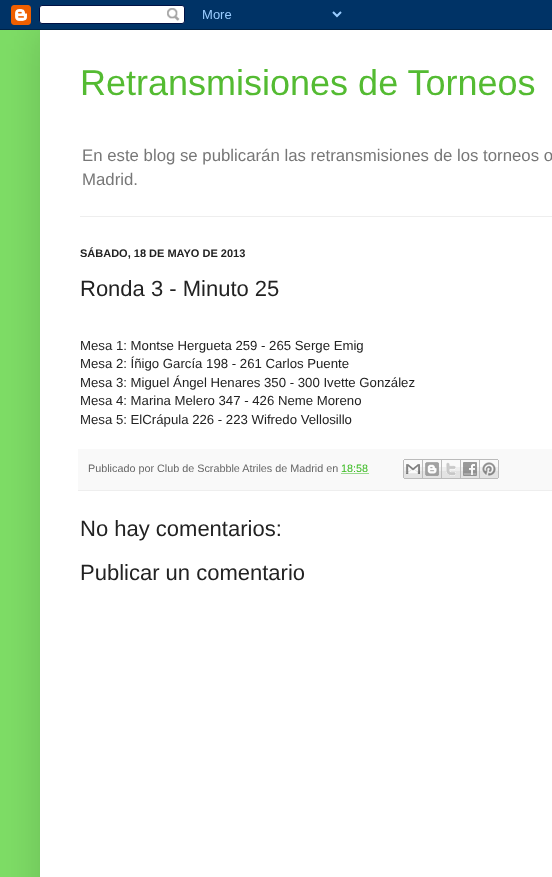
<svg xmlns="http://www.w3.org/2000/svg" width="552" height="877">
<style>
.a{font:36px Liberation Sans;fill:#54bb32}
.b{font:16.8px Liberation Sans;fill:#777}
.c{font:bold 11px Liberation Sans;fill:#222}
.d{font:22px Liberation Sans;fill:#222}
.e{font:13.2px Liberation Sans;fill:#222}
.f{font:10.8px Liberation Sans;fill:#666}
.g{font:10.8px Liberation Sans;fill:#3abb21}
</style>
<rect width="100%" height="100%" fill="#7edd66"/>
<path fill="#00000026" filter="blur(20px)" d="M40 30h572v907H40z"/>
<image href="1.png" x="0" y="0" width="552" height="30"/>
<path fill="#fff" d="M40 30h512v847H40z"/>
<path fill="#eee" d="M80 216h472v1H80z"/>
<path fill="#f9f9f9" d="M78 449h474v41H78z"/>
<path fill="#eee" d="M78 490h474v1H78z"/>
<path fill="none" stroke="#3abb21" stroke-dasharray="1 1" d="M341.5 473.5h27"/>
<image href="2.png" x="403" y="459" width="20" height="20"/>
<image href="3.png" x="423" y="459" width="19" height="20"/>
<image href="4.png" x="442" y="459" width="19" height="20"/>
<image href="5.png" x="461" y="459" width="19" height="20"/>
<image href="6.png" x="480" y="459" width="19" height="20"/>
<text class="a" x="80" y="95">Retransmisiones de Torneos</text>
<text class="b" x="82" y="161">En este blog se publicarán las retransmisiones de los torneos o</text>
<text class="b" x="82" y="185">Madrid.</text>
<text class="c" x="80" y="257">SÁBADO, 18 DE MAYO DE 2013</text>
<text class="d" x="80" y="296">Ronda 3 - Minuto 25</text>
<text class="e" x="80" y="350">Mesa 1: Montse Hergueta 259 - 265 Serge Emig</text>
<text class="e" x="80" y="368">Mesa 2: Íñigo García 198 - 261 Carlos Puente</text>
<text class="e" x="80" y="387">Mesa 3: Miguel Ángel Henares 350 - 300 Ivette González</text>
<text class="e" x="80" y="405">Mesa 4: Marina Melero 347 - 426 Neme Moreno</text>
<text class="e" x="80" y="424">Mesa 5: ElCrápula 226 - 223 Wifredo Vellosillo</text>
<text class="f" x="88" y="472">Publicado por Club de Scrabble Atriles de Madrid en</text>
<text class="g" x="341" y="472">18:58</text>
<text class="d" x="80" y="536">No hay comentarios:</text>
<text class="d" x="80" y="580">Publicar un comentario</text>
</svg>
